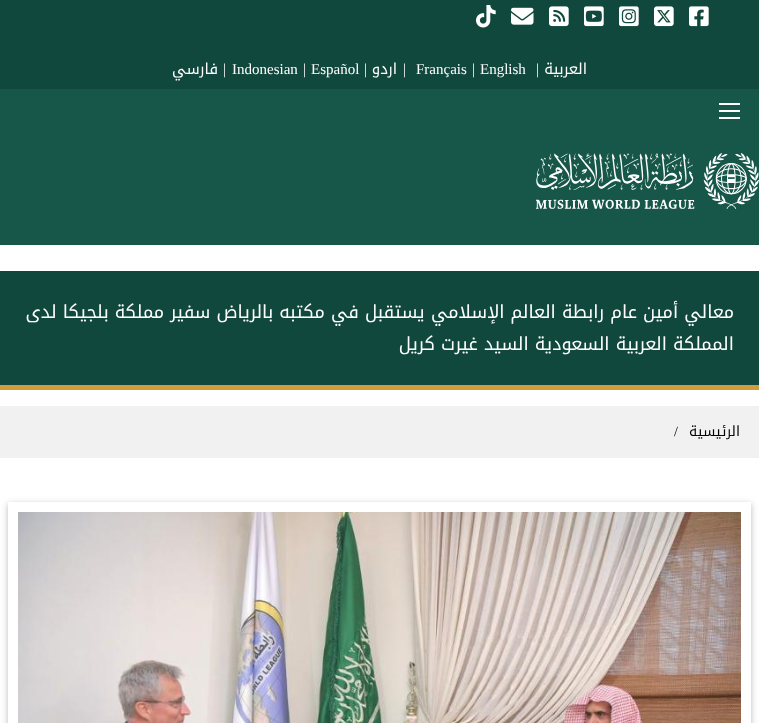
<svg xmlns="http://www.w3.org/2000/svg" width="759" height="723">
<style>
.a{font:15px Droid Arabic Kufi;direction:rtl;fill:#fff}
.b{font:15px Liberation Serif;fill:#fff}
.c{font:18px Droid Arabic Kufi;direction:rtl;fill:#fff}
.d{font:14px Droid Arabic Kufi;direction:rtl;fill:#000}
.e{font:14px Liberation Serif;fill:#000}
</style>
<defs>
<clipPath id="clip1"><path d="M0 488h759v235h-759zm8 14h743v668h-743z" clip-rule="evenodd"/></clipPath>
<clipPath id="clip2"><path d="M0 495h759v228h-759zm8 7h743v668h-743z" clip-rule="evenodd"/></clipPath>
</defs>
<rect width="100%" height="100%" fill="#fff"/>
<path fill="#11483d" d="M0 0h759v89H0z"/>
<image href="1.png" x="689" y="6" width="20" height="21"/>
<image href="2.png" x="654" y="6" width="20" height="21"/>
<image href="3.png" x="619" y="6" width="20" height="21"/>
<image href="4.png" x="584" y="6" width="20" height="21"/>
<image href="5.png" x="549" y="6" width="20" height="21"/>
<image href="6.png" x="511" y="7" width="23" height="18"/>
<image href="7.png" x="476" y="5" width="20" height="23"/>
<path fill="#17574a" d="M0 89h759v156H0z"/>
<path fill="#fff" d="M719 110h21v2H719z"/>
<path fill="#fff" d="M719 103h21v2H719z"/>
<path fill="#fff" d="M719 117h21v2H719z"/>
<image href="8.png" x="536" y="153" width="223" height="56"/>
<path fill="#11483d" d="M0 271h759v114H0z"/>
<path fill="#d39c3b" d="M0 385h759v5H0z"/>
<path fill="#f1f1f1" d="M0 406h759v52H0z"/>
<g clip-path="url(#clip1)">
<path fill="#0000001f" filter="blur(5px)" d="M8 504h743v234H8z"/>
</g>
<g clip-path="url(#clip2)">
<path fill="#00000029" filter="blur(2.5px)" d="M8 504h743v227H8z"/>
</g>
<image href="9.png" x="18" y="512" width="723" height="211"/>
<text class="a" x="587" y="74">العربية</text>
<text class="b" x="536" y="74">|</text>
<text class="b" x="480" y="74">English</text>
<text class="b" x="472" y="74">|</text>
<text class="b" x="416" y="74">Français</text>
<text class="b" x="403" y="74">|</text>
<text class="a" x="397" y="74">اردو</text>
<text class="b" x="364" y="74">|</text>
<text class="b" x="311" y="74">Español</text>
<text class="b" x="303" y="74">|</text>
<text class="b" x="232" y="74">Indonesian</text>
<text class="b" x="223" y="74">|</text>
<text class="a" x="218" y="74">فارسي</text>
<text class="c" x="734" y="318">معالي أمين عام رابطة العالم الإسلامي يستقبل في مكتبه بالرياض سفير مملكة بلجيكا لدى</text>
<text class="c" x="734" y="350">المملكة العربية السعودية السيد غيرت كريل</text>
<text class="d" x="740" y="436">الرئيسية</text>
<text class="e" x="674" y="436">/</text>
</svg>
